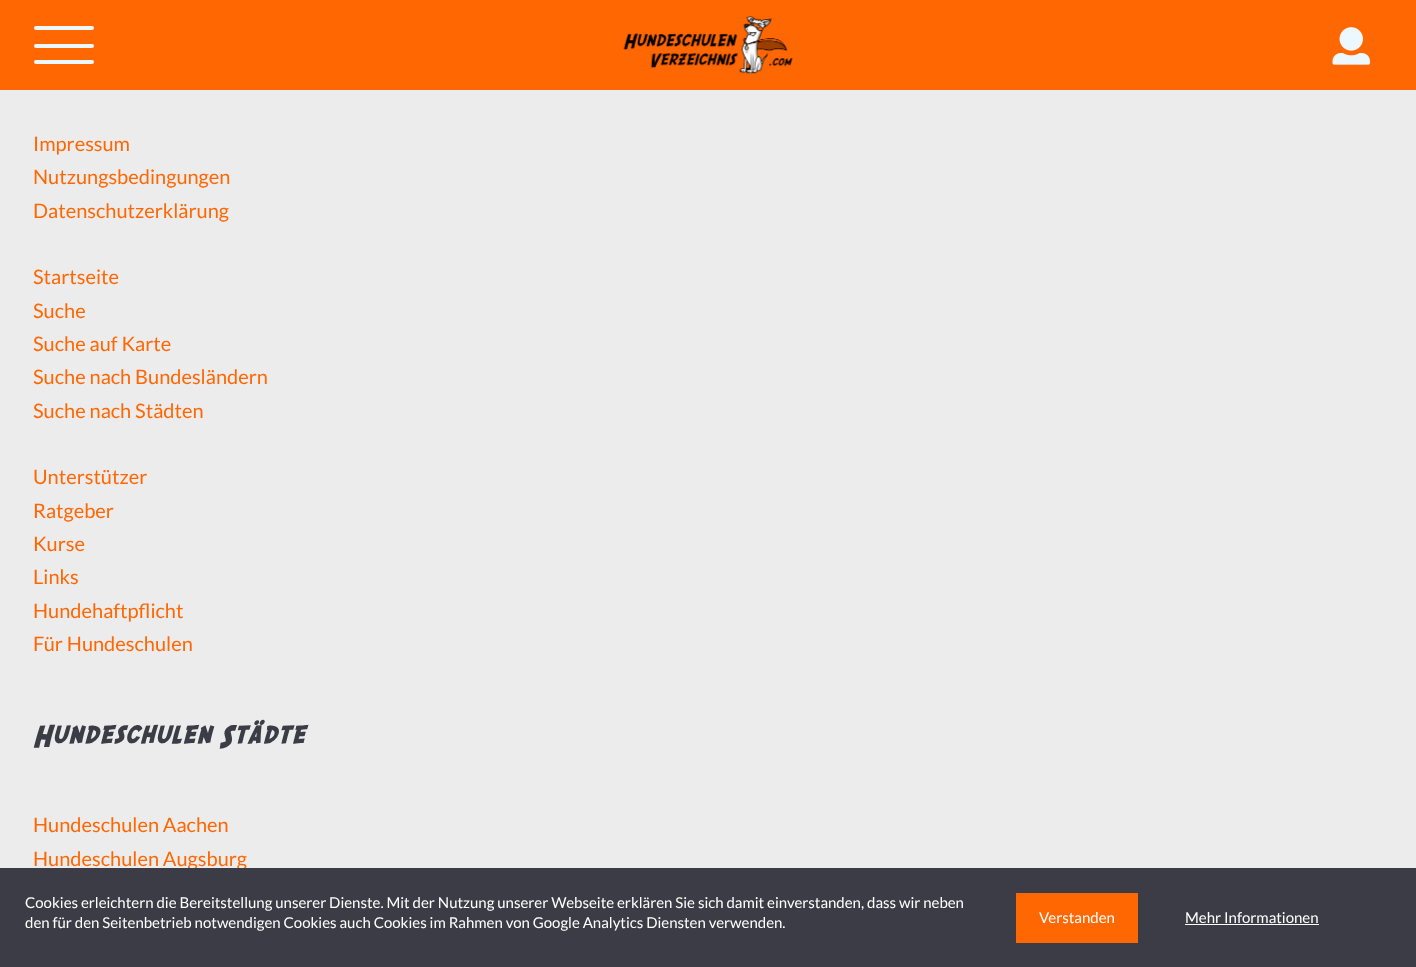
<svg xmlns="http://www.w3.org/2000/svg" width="1416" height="967">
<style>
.a{font:20px Lato;fill:#ff6703}
.b{font:bold 28.75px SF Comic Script;fill:#3c3c46}
.c{font:15px Lato;fill:#fff}
</style>
<rect width="100%" height="100%" fill="#ececed"/>
<path fill="#ff6703" d="M0 0h1416v90H0z"/>
<rect fill="#ecf7fe" x="34" y="44" width="60" height="4" rx="2"/>
<rect fill="#ecf7fe" x="34" y="26" width="60" height="4" rx="2"/>
<rect fill="#ecf7fe" x="34" y="60" width="60" height="4" rx="2"/>
<image href="1.png" x="623" y="16" width="170" height="58"/>
<image href="2.png" x="1332" y="27" width="38" height="38"/>
<text class="a" x="33" y="151">Impressum</text>
<text class="a" x="33" y="184">Nutzungsbedingungen</text>
<text class="a" x="33" y="218">Datenschutzerklärung</text>
<text class="a" x="33" y="284">Startseite</text>
<text class="a" x="33" y="318">Suche</text>
<text class="a" x="33" y="351">Suche auf Karte</text>
<text class="a" x="33" y="384">Suche nach Bundesländern</text>
<text class="a" x="33" y="418">Suche nach Städten</text>
<text class="a" x="33" y="484">Unterstützer</text>
<text class="a" x="33" y="518">Ratgeber</text>
<text class="a" x="33" y="551">Kurse</text>
<text class="a" x="33" y="584">Links</text>
<text class="a" x="33" y="618">Hundehaftpflicht</text>
<text class="a" x="33" y="651">Für Hundeschulen</text>
<text class="b" x="33" y="746">Hundeschulen Städte</text>
<text class="a" x="33" y="832">Hundeschulen Aachen</text>
<text class="a" x="33" y="866">Hundeschulen Augsburg</text>
<path fill="#3c3c46" d="M0 868h1416v99H0z"/>
<text class="c" x="25" y="908">Cookies erleichtern die Bereitstellung unserer Dienste. Mit der Nutzung unserer Webseite erklären Sie sich damit einverstanden, dass wir neben</text>
<text class="c" x="25" y="928">den für den Seitenbetrieb notwendigen Cookies auch Cookies im Rahmen von Google Analytics Diensten verwenden.</text>
<path fill="#ff6703" d="M1016 893h122v50H1016z"/>
<text class="c" x="1039" y="923">Verstanden</text>
<text class="c" x="1185" y="923">Mehr Informationen</text>
<path fill="#fff" d="M1185 924h134v1H1185z"/>
</svg>
